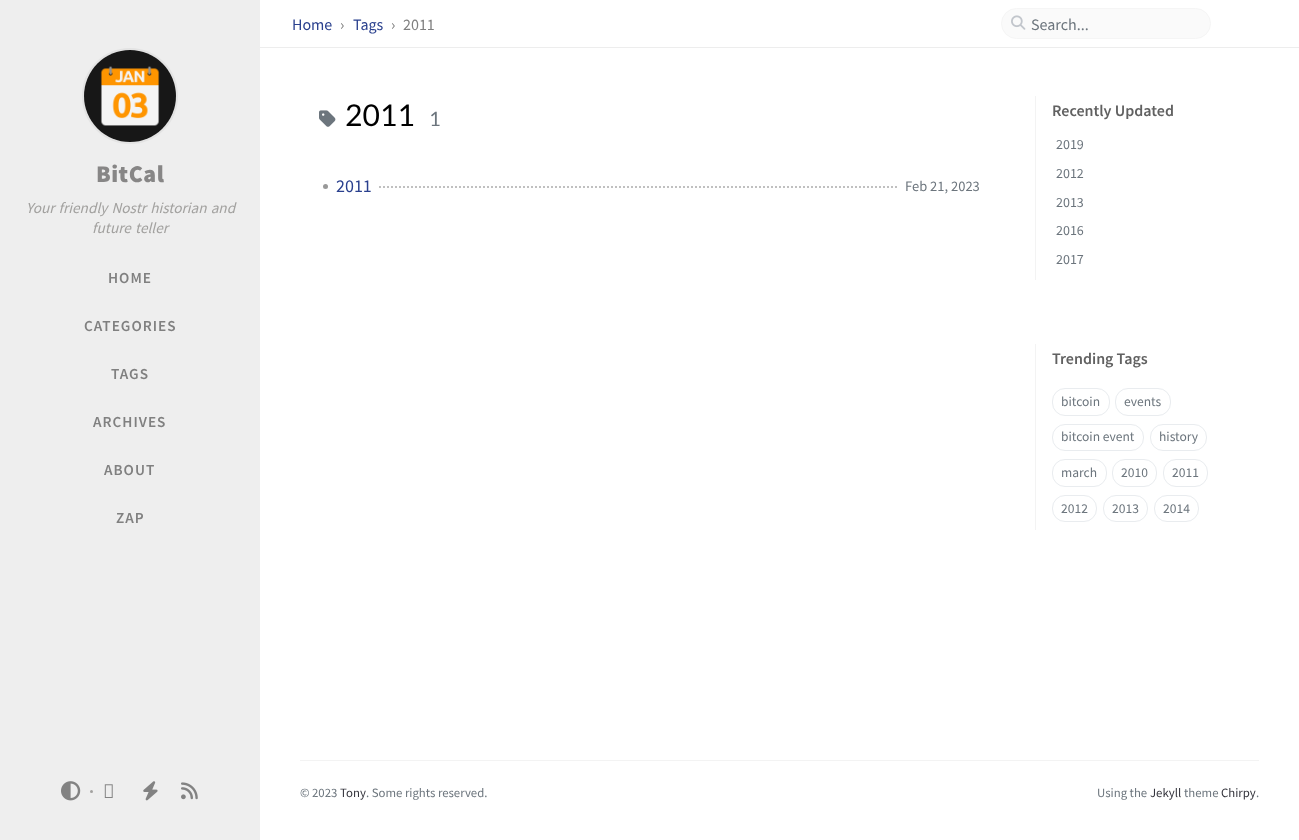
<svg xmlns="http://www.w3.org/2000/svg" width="1299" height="840">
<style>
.a{font:16px Source Sans Pro;fill:#2a408e}
.b{font:16px Source Sans Pro;fill:#808080}
.c{font:16px Source Sans Pro;fill:#6c757d}
.d{font:900 24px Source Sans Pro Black;letter-spacing:0.5px;fill:#878686}
.e{font:italic 15.25px Source Sans Pro;fill:#a2a19f}
.f{font:600 15.25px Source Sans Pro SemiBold;letter-spacing:1px;fill:#808080}
.g{font:30px Lato;fill:#000}
.h{font:20px Lato;fill:#6c757d}
.i{font:18px Source Sans Pro;fill:#2a408e}
.j{font:14.5px Source Sans Pro;fill:#6c757d}
.k{font:600 16px Source Sans Pro SemiBold;fill:#616161}
.l{font:14px Source Sans Pro;fill:#6c757d}
.m{font:13.5px Source Sans Pro;fill:#6c757d}
.n{font:12.75px Source Sans Pro;fill:#6c757d}
.o{font:12.75px Source Sans Pro;fill:#34343c}
</style>
<rect width="100%" height="100%" fill="#fff"/>
<path fill="#ededed" d="M260 47h1039v1H260z"/>
<rect fill="#fafafa" stroke="#f5f5f5" x="1001.5" y="8.5" width="209" height="30" rx="15"/>
<image href="1.png" x="1011" y="15" width="15" height="15"/>
<path fill="#eee" d="M0 0h260v840H0z"/>
<circle fill="none" stroke="#e3e3e3" stroke-width="2" cx="130" cy="96" r="47"/>
<image href="2.png" x="84" y="50" width="92" height="92"/>
<image href="3.png" x="61" y="781" width="20" height="20"/>
<circle fill="#a2a19f" cx="91.5" cy="791.5" r="1.5"/>
<image href="4.png" x="104" y="784" width="9" height="14"/>
<image href="5.png" x="143" y="781" width="15" height="20"/>
<image href="6.png" x="181" y="782" width="17" height="18"/>
<image href="7.png" x="319" y="110" width="17" height="17"/>
<circle fill="#999" cx="325.5" cy="186.5" r="2.5"/>
<path fill="none" stroke="#c0c0c0" stroke-width="2" stroke-dasharray="2 2" d="M379 187h518"/>
<path fill="#f3f3f3" d="M1035 96h1v184H1035z"/>
<path fill="#f3f3f3" d="M1035 344h1v186H1035z"/>
<rect fill="none" stroke="#e9ecef" x="1052.5" y="388.5" width="57" height="27" rx="12.5"/>
<rect fill="none" stroke="#e9ecef" x="1115.5" y="388.5" width="55" height="27" rx="12.5"/>
<rect fill="none" stroke="#e9ecef" x="1052.5" y="424.5" width="91" height="26" rx="12.5"/>
<rect fill="none" stroke="#e9ecef" x="1150.5" y="424.5" width="56" height="26" rx="12.5"/>
<rect fill="none" stroke="#e9ecef" x="1052.5" y="459.5" width="54" height="27" rx="12.5"/>
<rect fill="none" stroke="#e9ecef" x="1112.5" y="459.5" width="44" height="27" rx="12.5"/>
<rect fill="none" stroke="#e9ecef" x="1163.5" y="459.5" width="44" height="27" rx="12.5"/>
<rect fill="none" stroke="#e9ecef" x="1052.5" y="495.5" width="44" height="26" rx="12.5"/>
<rect fill="none" stroke="#e9ecef" x="1103.5" y="495.5" width="44" height="26" rx="12.5"/>
<rect fill="none" stroke="#e9ecef" x="1154.5" y="495.5" width="44" height="26" rx="12.5"/>
<path fill="#f3f3f3" d="M300 760h959v1H300z"/>
<text class="a" x="292" y="30">Home</text>
<text class="b" x="340" y="30">›</text>
<text class="a" x="353" y="30">Tags</text>
<text class="b" x="391" y="30">›</text>
<text class="b" x="403" y="30">2011</text>
<text class="c" x="1031" y="30">Search...</text>
<text class="d" x="96" y="182">BitCal</text>
<text class="e" x="26" y="213" word-spacing="1">Your friendly Nostr historian and</text>
<text class="e" x="92" y="233" word-spacing="1">future teller</text>
<text class="f" x="108" y="283">HOME</text>
<text class="f" x="84" y="331">CATEGORIES</text>
<text class="f" x="111" y="379">TAGS</text>
<text class="f" x="93" y="427">ARCHIVES</text>
<text class="f" x="104" y="475">ABOUT</text>
<text class="f" x="116" y="523">ZAP</text>
<text class="g" x="345" y="126">2011</text>
<text class="h" x="429" y="126">1</text>
<text class="i" x="336" y="192">2011</text>
<text class="j" x="905" y="191">Feb 21, 2023</text>
<text class="k" x="1052" y="116">Recently Updated</text>
<text class="l" x="1056" y="149">2019</text>
<text class="l" x="1056" y="178">2012</text>
<text class="l" x="1056" y="207">2013</text>
<text class="l" x="1056" y="235">2016</text>
<text class="l" x="1056" y="264">2017</text>
<text class="k" x="1052" y="364">Trending Tags</text>
<text class="m" x="1061" y="406">bitcoin</text>
<text class="m" x="1124" y="406">events</text>
<text class="m" x="1061" y="441">bitcoin event</text>
<text class="m" x="1159" y="441">history</text>
<text class="m" x="1061" y="477">march</text>
<text class="m" x="1121" y="477">2010</text>
<text class="m" x="1172" y="477">2011</text>
<text class="m" x="1061" y="513">2012</text>
<text class="m" x="1112" y="513">2013</text>
<text class="m" x="1163" y="513">2014</text>
<text class="n" x="300" y="797">© 2023</text>
<text class="o" x="340" y="797">Tony</text>
<text class="n" x="366" y="797">. Some rights reserved.</text>
<text class="n" x="1097" y="797">Using the</text>
<text class="o" x="1150" y="797">Jekyll</text>
<text class="n" x="1184" y="797">theme</text>
<text class="o" x="1221" y="797">Chirpy</text>
<text class="n" x="1256" y="797">.</text>
</svg>
